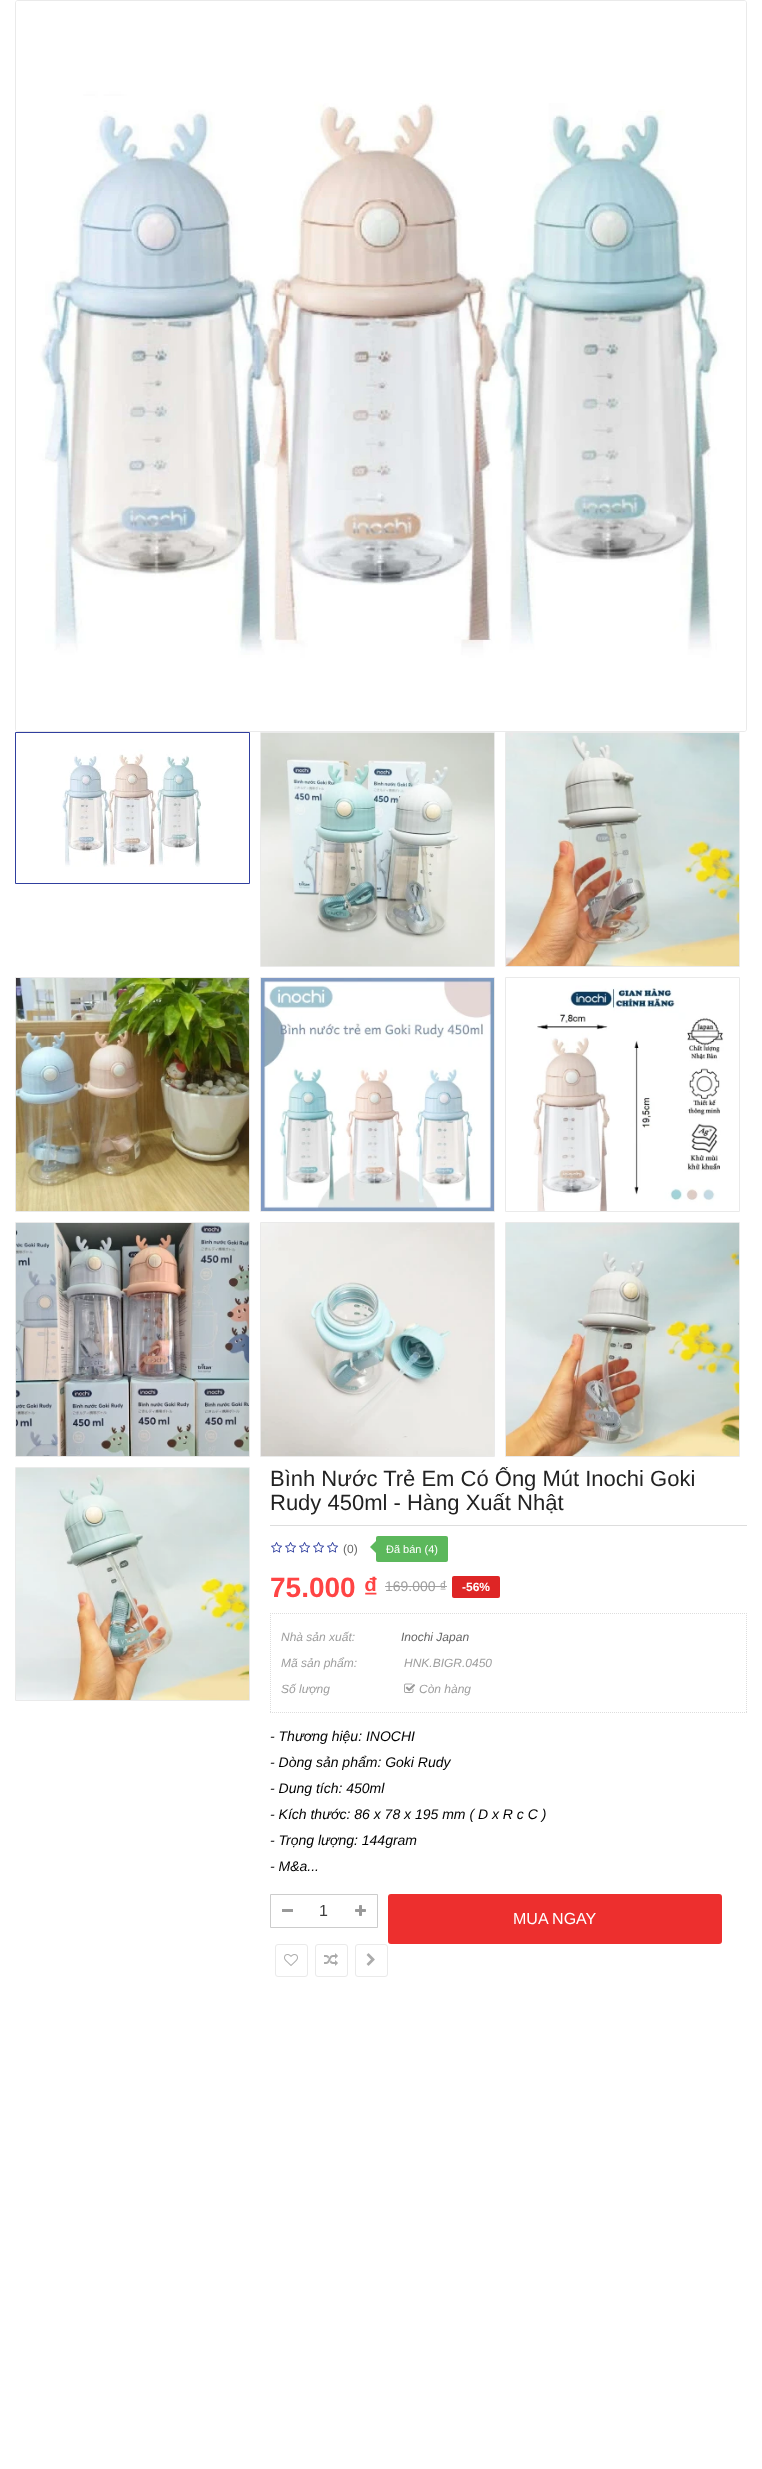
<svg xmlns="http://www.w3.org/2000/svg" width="762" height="2469">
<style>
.a{font:22px Liberation Sans;fill:#222}
.b{font:12px Liberation Sans;fill:#666}
.c{font:11px Liberation Sans;fill:#fff}
.d{font:bold 28px Liberation Sans;fill:#f44}
.e{font:14px Liberation Sans;fill:#9e9e9e}
.f{font:bold 12px Liberation Sans;fill:#fff}
.g{font:italic 12px Liberation Sans;fill:#9e9e9e}
.h{font:italic 12px Liberation Sans;fill:#666}
.i{font:italic 14px Liberation Sans;fill:#000}
.j{font:16px Liberation Sans;fill:#3d3d3d}
.k{font:16px Liberation Sans;fill:#fff}
</style>
<defs>
<clipPath id="clip1"><path d="M255 1467h507v510H255z"/></clipPath>
</defs>
<rect width="100%" height="100%" fill="#fff"/>
<rect fill="none" stroke="#eaeaea" x="15.5" y="0.5" width="731" height="731" rx="2.5"/>
<image href="1.png" x="16" y="1" width="730" height="730"/>
<path fill="none" stroke="#303f9f" d="M15.5 732.5h234v151H15.5z"/>
<image href="2.png" x="61" y="749" width="140" height="118"/>
<path fill="none" stroke="#eaeaea" d="M260.5 732.5h234v234H260.5z"/>
<image href="3.png" x="261" y="733" width="233" height="233"/>
<path fill="none" stroke="#eaeaea" d="M505.5 732.5h234v234H505.5z"/>
<image href="4.png" x="506" y="733" width="233" height="233"/>
<path fill="none" stroke="#eaeaea" d="M15.5 977.5h234v234H15.5z"/>
<image href="5.png" x="16" y="978" width="233" height="233"/>
<path fill="none" stroke="#eaeaea" d="M260.5 977.5h234v234H260.5z"/>
<image href="6.png" x="261" y="978" width="233" height="233"/>
<path fill="none" stroke="#eaeaea" d="M505.5 977.5h234v234H505.5z"/>
<image href="7.png" x="533" y="985" width="191" height="226"/>
<path fill="none" stroke="#eaeaea" d="M15.5 1222.5h234v234H15.5z"/>
<image href="8.png" x="16" y="1223" width="233" height="233"/>
<path fill="none" stroke="#eaeaea" d="M260.5 1222.5h234v234H260.5z"/>
<image href="9.png" x="261" y="1223" width="233" height="233"/>
<path fill="none" stroke="#eaeaea" d="M505.5 1222.5h234v234H505.5z"/>
<image href="10.png" x="506" y="1223" width="233" height="233"/>
<path fill="none" stroke="#eaeaea" d="M15.5 1467.5h234v233H15.5z"/>
<image href="11.png" x="16" y="1468" width="233" height="232"/>
<path fill="#ddd" d="M270 1525h477v1H270z"/>
<image href="12.png" x="271" y="1542" width="12" height="11"/>
<image href="12.png" x="285" y="1542" width="12" height="11"/>
<image href="12.png" x="299" y="1542" width="12" height="11"/>
<image href="12.png" x="313" y="1542" width="12" height="11"/>
<image href="12.png" x="327" y="1542" width="12" height="11"/>
<rect fill="#5cb85c" x="376" y="1536" width="72" height="26" rx="2"/>
<path fill="#5cb85c" d="M377 1540v14l-7-7z"/>
<path fill="#9e9e9e" d="M385 1586h62v1H385z"/>
<rect fill="#de2525" x="452" y="1576" width="48" height="22" rx="2"/>
<path fill="none" stroke="#ddd" stroke-dasharray="1 1" d="M270 1613.5h477"/>
<path fill="none" stroke="#ddd" stroke-dasharray="1 1" d="M746.5 1613v100"/>
<path fill="none" stroke="#ddd" stroke-dasharray="1 1" d="M270 1712.5h477"/>
<path fill="none" stroke="#ddd" stroke-dasharray="1 1" d="M270.5 1613v100"/>
<image href="13.png" x="404" y="1683" width="12" height="10"/>
<path fill="none" stroke="#ccc" d="M270.5 1894.5h107v33H270.5z"/>
<path fill="#999" d="M282 1909h11v3H282z"/>
<image href="14.png" x="355" y="1905" width="11" height="11"/>
<rect fill="#ed2f2e" x="388" y="1894" width="334" height="50" rx="3"/>
<rect fill="none" stroke="#eaeaea" x="275.5" y="1944.5" width="32" height="32" rx="2.5"/>
<image href="15.png" x="284" y="1954" width="14" height="12"/>
<rect fill="none" stroke="#eaeaea" x="315.5" y="1944.5" width="32" height="32" rx="2.5"/>
<image href="16.png" x="324" y="1953" width="14" height="13"/>
<rect fill="none" stroke="#eaeaea" x="355.5" y="1944.5" width="32" height="32" rx="2.5"/>
<image href="17.png" x="366" y="1953" width="9" height="13"/>
<g clip-path="url(#clip1)">
<text class="a" x="270" y="1486">Bình Nước Trẻ Em Có Ống Mút Inochi Goki</text>
</g>
<text class="a" x="270" y="1510">Rudy 450ml - Hàng Xuất Nhật</text>
<text class="b" x="343" y="1553">(0)</text>
<text class="c" x="386" y="1553">Đã bán (4)</text>
<text class="d" x="270" y="1597">75.000 ₫</text>
<text class="e" x="385" y="1591">169.000 ₫</text>
<text class="f" x="462" y="1591">-56%</text>
<text class="g" x="281" y="1641">Nhà sản xuất:</text>
<text class="h" x="401" y="1641">Inochi Japan</text>
<text class="g" x="281" y="1667">Mã sản phẩm:</text>
<text class="g" x="404" y="1667">HNK.BIGR.0450</text>
<text class="g" x="281" y="1693">Số lượng</text>
<text class="g" x="419" y="1693">Còn hàng</text>
<text class="i" x="270" y="1741">- Thương hiệu: INOCHI</text>
<text class="i" x="270" y="1767">- Dòng sản phẩm: Goki Rudy</text>
<text class="i" x="270" y="1793">- Dung tích: 450ml</text>
<text class="i" x="270" y="1819">- Kích thước: 86 x 78 x 195 mm ( D x R c C )</text>
<text class="i" x="270" y="1845">- Trọng lượng: 144gram</text>
<text class="i" x="270" y="1871">- M&amp;a...</text>
<text class="j" x="319" y="1916">1</text>
<text class="k" x="513" y="1924">MUA NGAY</text>
</svg>
